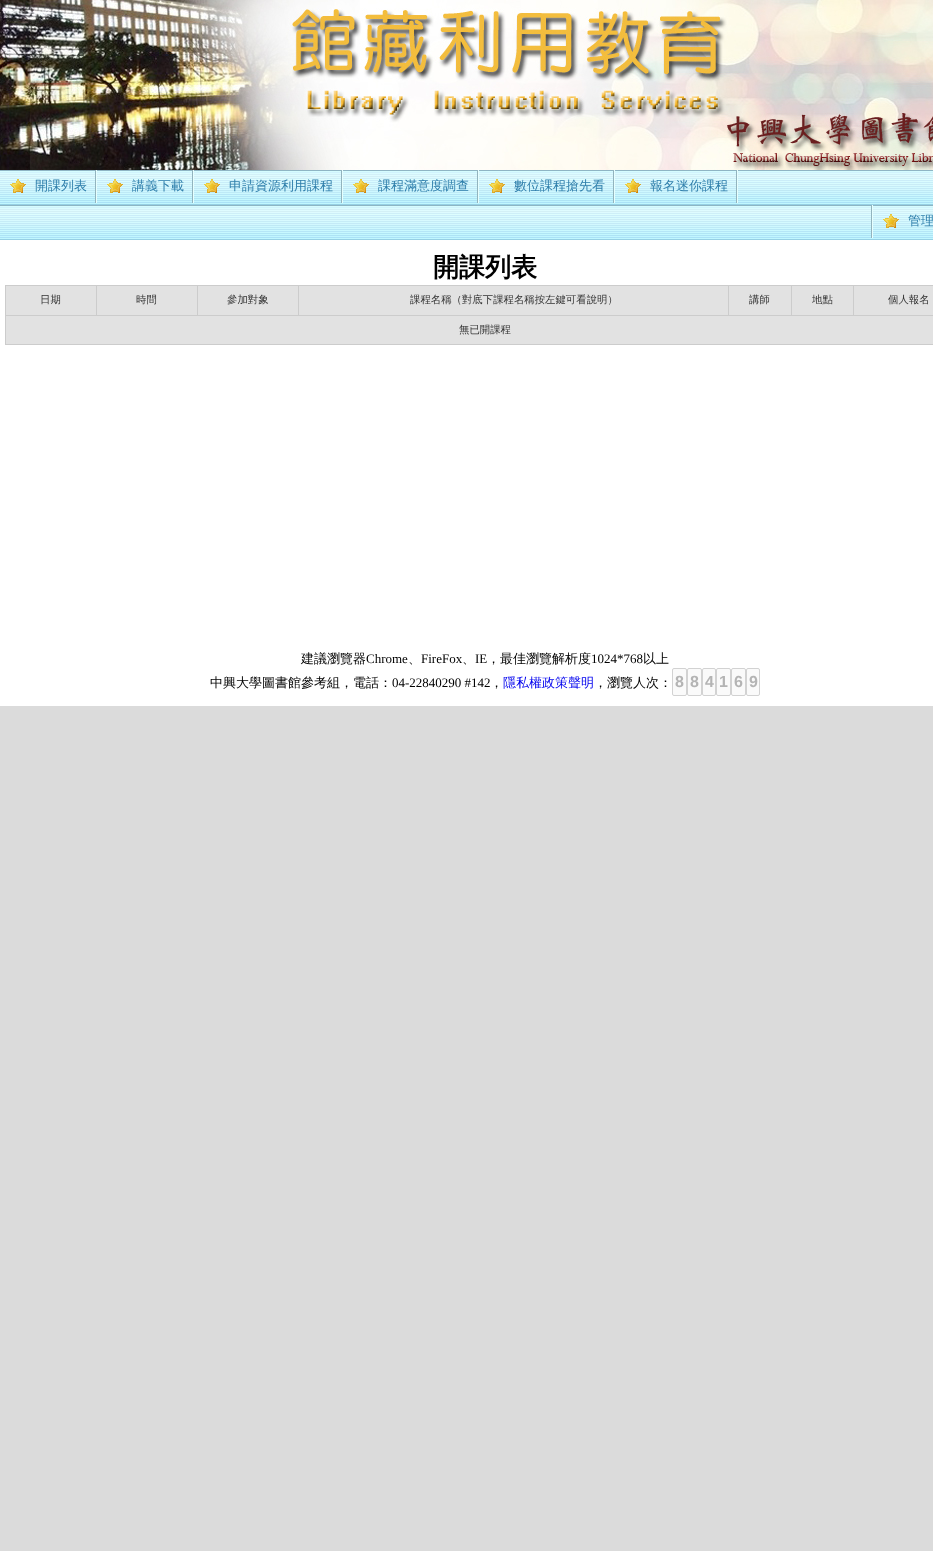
<svg xmlns="http://www.w3.org/2000/svg" width="933" height="1551">
<style>
.a{font:500 13px WenQuanYi Zen Hei;fill:#2e7eab}
.b{font:bold 26px WenQuanYi Zen Hei;fill:#000}
.c{font:500 10.4px WenQuanYi Zen Hei;fill:#333}
.d{font:500 13px WenQuanYi Zen Hei;fill:#000}
.e{font:13px Liberation Serif;fill:#000}
.f{font:500 13px WenQuanYi Zen Hei;fill:#00e}
.g{font:bold 16px Liberation Sans;fill:#b4b4b4}
</style>
<rect width="100%" height="100%" fill="#dbdbdb"/>
<path fill="#fff" d="M0 240h933v466H0z"/>
<image href="1.png" x="0" y="0" width="933" height="170"/>
<image href="2.png" x="0" y="170" width="933" height="35"/>
<image href="3.png" x="95" y="170" width="2" height="33"/>
<image href="4.png" x="10" y="179" width="16" height="14"/>
<image href="3.png" x="192" y="170" width="2" height="33"/>
<image href="4.png" x="107" y="179" width="16" height="14"/>
<image href="3.png" x="341" y="170" width="2" height="33"/>
<image href="4.png" x="204" y="179" width="16" height="14"/>
<image href="3.png" x="477" y="170" width="2" height="33"/>
<image href="4.png" x="353" y="179" width="16" height="14"/>
<image href="3.png" x="613" y="170" width="2" height="33"/>
<image href="4.png" x="489" y="179" width="16" height="14"/>
<image href="3.png" x="736" y="170" width="2" height="33"/>
<image href="4.png" x="625" y="179" width="16" height="14"/>
<image href="2.png" x="0" y="205" width="933" height="35"/>
<image href="3.png" x="871" y="205" width="2" height="33"/>
<image href="4.png" x="883" y="214" width="16" height="14"/>
<path fill="#ccc" d="M5 285h928v1H5z"/>
<path fill="#ccc" d="M5 285h1v60H5z"/>
<path fill="#e2e2e2" d="M6 286h90v29H6z"/>
<path fill="#ccc" d="M853 315h80v1H853z"/>
<path fill="#ccc" d="M853 285h1v31H853z"/>
<path fill="#ccc" d="M791 315h63v1H791z"/>
<path fill="#ccc" d="M791 285h1v31H791z"/>
<path fill="#ccc" d="M728 315h64v1H728z"/>
<path fill="#ccc" d="M728 285h1v31H728z"/>
<path fill="#ccc" d="M298 315h431v1H298z"/>
<path fill="#ccc" d="M298 285h1v31H298z"/>
<path fill="#ccc" d="M197 315h102v1H197z"/>
<path fill="#ccc" d="M197 285h1v31H197z"/>
<path fill="#ccc" d="M96 315h102v1H96z"/>
<path fill="#ccc" d="M96 285h1v31H96z"/>
<path fill="#ccc" d="M5 315h92v1H5z"/>
<path fill="#e2e2e2" d="M97 286h100v29H97z"/>
<path fill="#e2e2e2" d="M198 286h100v29H198z"/>
<path fill="#e2e2e2" d="M299 286h429v29H299z"/>
<path fill="#e2e2e2" d="M729 286h62v29H729z"/>
<path fill="#e2e2e2" d="M792 286h61v29H792z"/>
<path fill="#e2e2e2" d="M854 286h79v29H854z"/>
<path fill="#e2e2e2" d="M6 316h927v28H6z"/>
<path fill="#ccc" d="M5 344h928v1H5z"/>
<rect fill="#fafafa" stroke="#d2d2d2" x="672.5" y="668.5" width="14" height="27" rx="1.5"/>
<rect fill="#fafafa" stroke="#d2d2d2" x="687.5" y="668.5" width="14" height="27" rx="1.5"/>
<rect fill="#fafafa" stroke="#d2d2d2" x="702.5" y="668.5" width="13" height="27" rx="1.5"/>
<rect fill="#fafafa" stroke="#d2d2d2" x="716.5" y="668.5" width="14" height="27" rx="1.5"/>
<rect fill="#fafafa" stroke="#d2d2d2" x="731.5" y="668.5" width="14" height="27" rx="1.5"/>
<rect fill="#fafafa" stroke="#d2d2d2" x="746.5" y="668.5" width="13" height="27" rx="1.5"/>
<text class="a" x="35" y="190">開課列表</text>
<text class="a" x="132" y="190">講義下載</text>
<text class="a" x="229" y="190">申請資源利用課程</text>
<text class="a" x="378" y="190">課程滿意度調查</text>
<text class="a" x="514" y="190">數位課程搶先看</text>
<text class="a" x="650" y="190">報名迷你課程</text>
<text class="a" x="908" y="225">管理</text>
<text class="b" x="433" y="276">開課列表</text>
<text class="c" x="40" y="303">日期</text>
<text class="c" x="136" y="303">時間</text>
<text class="c" x="227" y="303">參加對象</text>
<text class="c" x="410" y="303">課程名稱（對底下課程名稱按左鍵可看說明）</text>
<text class="c" x="749" y="303">講師</text>
<text class="c" x="812" y="303">地點</text>
<text class="c" x="888" y="303">個人報名</text>
<text class="c" x="459" y="333">無已開課程</text>
<text class="d" x="301" y="663">建議瀏覽器</text>
<text class="e" x="366" y="663">Chrome</text>
<text class="d" x="408" y="663">、</text>
<text class="e" x="421" y="663">FireFox</text>
<text class="d" x="462" y="663">、</text>
<text class="e" x="475" y="663">IE</text>
<text class="d" x="487" y="663">，最佳瀏覽解析度</text>
<text class="e" x="591" y="663">1024*768</text>
<text class="d" x="643" y="663">以上</text>
<text class="d" x="210" y="687">中興大學圖書館參考組，電話：</text>
<text class="e" x="392" y="687">04-22840290 #142</text>
<text class="d" x="490" y="687">，</text>
<text class="f" x="503" y="687">隱私權政策聲明</text>
<text class="d" x="594" y="687">，瀏覽人次：</text>
<text class="g" x="675" y="687">8</text>
<text class="g" x="690" y="687">8</text>
<text class="g" x="705" y="687">4</text>
<text class="g" x="719" y="687">1</text>
<text class="g" x="734" y="687">6</text>
<text class="g" x="749" y="687">9</text>
</svg>
